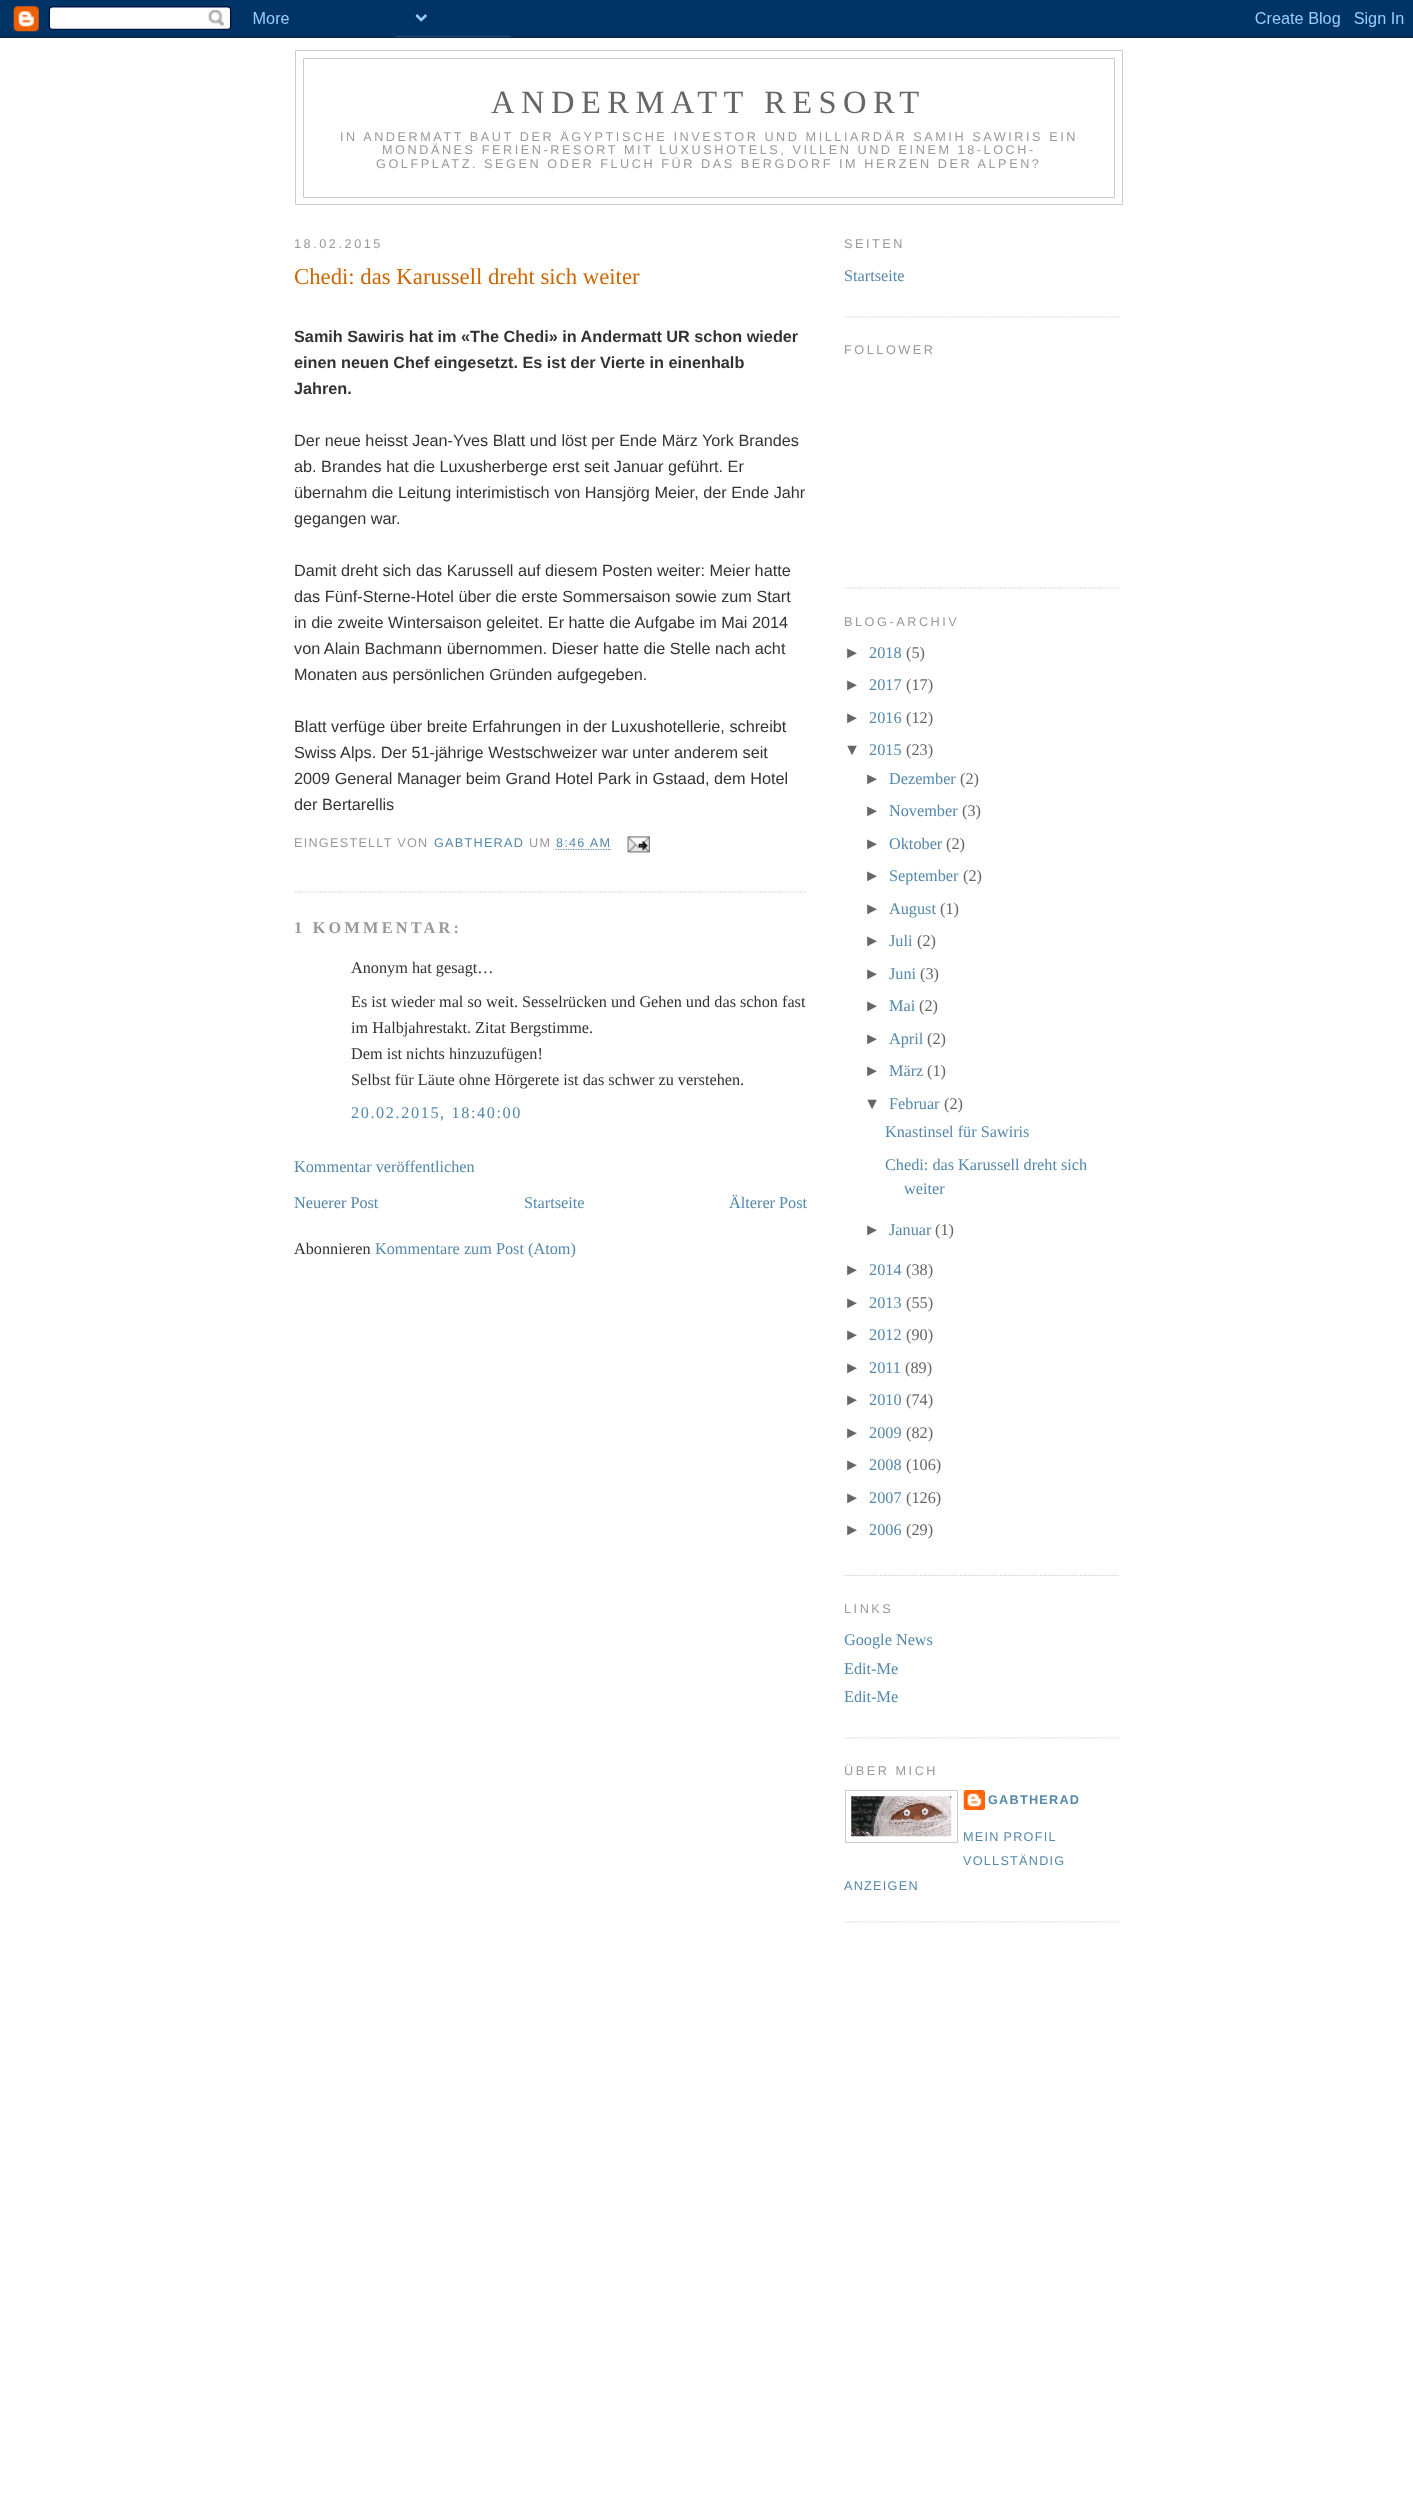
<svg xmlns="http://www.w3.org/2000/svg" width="1413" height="2520">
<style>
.a{font:32.5px Liberation Serif;letter-spacing:6.5px;fill:#666}
.b{font:12.68px Liberation Sans;letter-spacing:2.55px;fill:#999}
.c{font:22.75px Liberation Serif;fill:#c60}
.d{font:bold 16.25px Liberation Sans;fill:#333}
.e{font:16.25px Liberation Sans;fill:#333}
.f{font:12.68px Liberation Sans;letter-spacing:1.25px;fill:#999}
.g{font:12.68px Liberation Sans;letter-spacing:1.25px;fill:#58a}
.h{font:bold 16.25px Liberation Serif;letter-spacing:3.25px;fill:#999}
.i{font:16.25px Liberation Serif;fill:#333}
.j{font:16.25px Liberation Serif;letter-spacing:1.6px;fill:#58a}
.k{font:16.25px Liberation Serif;fill:#58a}
.l{font:16.25px Liberation Sans;fill:#666}
.m{font:16.25px Liberation Serif;fill:#666}
.n{font:bold 12.68px Liberation Sans;letter-spacing:1.25px;fill:#58a}
</style>
<rect width="100%" height="100%" fill="#fff"/>
<image href="1.png" x="0" y="0" width="1413" height="38"/>
<path fill="none" stroke="#ccc" d="M295.5 50.5h827v154H295.5z"/>
<path fill="none" stroke="#ccc" d="M303.5 58.5h811v139H303.5z"/>
<path fill="none" stroke="#ccc" stroke-width="1.2" stroke-dasharray="1.25 1.25" d="M295 892h512.5"/>
<path fill="none" stroke="#58a" stroke-width="1.2" stroke-dasharray="1.25 1.25" d="M555.5 849.5h55.5"/>
<image href="2.png" x="627" y="836" width="23" height="17"/>
<path fill="none" stroke="#ccc" stroke-width="1.2" stroke-dasharray="1.25 1.25" d="M845 317h275"/>
<path fill="none" stroke="#ccc" stroke-width="1.2" stroke-dasharray="1.25 1.25" d="M845 588h275"/>
<path fill="none" stroke="#ccc" stroke-width="1.2" stroke-dasharray="1.25 1.25" d="M845 1575.5h275"/>
<path fill="none" stroke="#ccc" stroke-width="1.2" stroke-dasharray="1.25 1.25" d="M845 1738h275"/>
<path fill="none" stroke="#ccc" stroke-width="1.2" stroke-dasharray="1.25 1.25" d="M845 1922h275"/>
<path fill="none" stroke="#ccc" d="M845.5 1790.5h112v52H845.5z"/>
<image href="3.png" x="851" y="1796" width="101" height="41"/>
<image href="4.png" x="963" y="1790" width="22" height="20"/>
<text class="a" x="491" y="113">ANDERMATT RESORT</text>
<text class="b" x="340" y="141">IN ANDERMATT BAUT DER ÄGYPTISCHE INVESTOR UND MILLIARDÄR SAMIH SAWIRIS EIN</text>
<text class="b" x="382" y="154">MONDÄNES FERIEN-RESORT MIT LUXUSHOTELS, VILLEN UND EINEM 18-LOCH-</text>
<text class="b" x="376" y="168">GOLFPLATZ. SEGEN ODER FLUCH FÜR DAS BERGDORF IM HERZEN DER ALPEN?</text>
<text class="b" x="294" y="248">18.02.2015</text>
<text class="c" x="294" y="284">Chedi: das Karussell dreht sich weiter</text>
<text class="d" x="294" y="342">Samih Sawiris hat im «The Chedi» in Andermatt UR schon wieder</text>
<text class="d" x="294" y="368">einen neuen Chef eingesetzt. Es ist der Vierte in einenhalb</text>
<text class="d" x="294" y="394">Jahren.</text>
<text class="e" x="294" y="446">Der neue heisst Jean-Yves Blatt und löst per Ende März York Brandes</text>
<text class="e" x="294" y="472">ab. Brandes hat die Luxusherberge erst seit Januar geführt. Er</text>
<text class="e" x="294" y="498">übernahm die Leitung interimistisch von Hansjörg Meier, der Ende Jahr</text>
<text class="e" x="294" y="524">gegangen war.</text>
<text class="e" x="294" y="576">Damit dreht sich das Karussell auf diesem Posten weiter: Meier hatte</text>
<text class="e" x="294" y="602">das Fünf-Sterne-Hotel über die erste Sommersaison sowie zum Start</text>
<text class="e" x="294" y="628">in die zweite Wintersaison geleitet. Er hatte die Aufgabe im Mai 2014</text>
<text class="e" x="294" y="654">von Alain Bachmann übernommen. Dieser hatte die Stelle nach acht</text>
<text class="e" x="294" y="680">Monaten aus persönlichen Gründen aufgegeben.</text>
<text class="e" x="294" y="732">Blatt verfüge über breite Erfahrungen in der Luxushotellerie, schreibt</text>
<text class="e" x="294" y="758">Swiss Alps. Der 51-jährige Westschweizer war unter anderem seit</text>
<text class="e" x="294" y="784">2009 General Manager beim Grand Hotel Park in Gstaad, dem Hotel</text>
<text class="e" x="294" y="810">der Bertarellis</text>
<text class="f" x="294" y="847">EINGESTELLT VON</text>
<text class="g" x="434" y="847">GABTHERAD</text>
<text class="f" x="529" y="847">UM</text>
<text class="g" x="556" y="847">8:46 AM</text>
<text class="h" x="294" y="933">1 KOMMENTAR:</text>
<text class="i" x="351" y="973">Anonym hat gesagt…</text>
<text class="i" x="351" y="1007">Es ist wieder mal so weit. Sesselrücken und Gehen und das schon fast</text>
<text class="i" x="351" y="1033">im Halbjahrestakt. Zitat Bergstimme.</text>
<text class="i" x="351" y="1059">Dem ist nichts hinzuzufügen!</text>
<text class="i" x="351" y="1085">Selbst für Läute ohne Hörgerete ist das schwer zu verstehen.</text>
<text class="j" x="351" y="1118">20.02.2015, 18:40:00</text>
<text class="k" x="294" y="1172">Kommentar veröffentlichen</text>
<text class="k" x="294" y="1208">Neuerer Post</text>
<text class="k" x="524" y="1208">Startseite</text>
<text class="k" x="729" y="1208">Älterer Post</text>
<text class="i" x="294" y="1254">Abonnieren</text>
<text class="k" x="375" y="1254">Kommentare zum Post (Atom)</text>
<text class="b" x="844" y="248">SEITEN</text>
<text class="k" x="844" y="281">Startseite</text>
<text class="b" x="844" y="354">FOLLOWER</text>
<text class="b" x="844" y="626">BLOG-ARCHIV</text>
<text class="l" x="844" y="658">►</text>
<text class="k" x="869" y="658">2018</text>
<text class="m" x="906" y="658">(5)</text>
<text class="l" x="844" y="690">►</text>
<text class="k" x="869" y="690">2017</text>
<text class="m" x="906" y="690">(17)</text>
<text class="l" x="844" y="723">►</text>
<text class="k" x="869" y="723">2016</text>
<text class="m" x="906" y="723">(12)</text>
<text class="l" x="844" y="755">▼</text>
<text class="k" x="869" y="755">2015</text>
<text class="m" x="906" y="755">(23)</text>
<text class="l" x="864" y="784">►</text>
<text class="k" x="889" y="784">Dezember</text>
<text class="m" x="960" y="784">(2)</text>
<text class="l" x="864" y="816">►</text>
<text class="k" x="889" y="816">November</text>
<text class="m" x="962" y="816">(3)</text>
<text class="l" x="864" y="849">►</text>
<text class="k" x="889" y="849">Oktober</text>
<text class="m" x="946" y="849">(2)</text>
<text class="l" x="864" y="881">►</text>
<text class="k" x="889" y="881">September</text>
<text class="m" x="963" y="881">(2)</text>
<text class="l" x="864" y="914">►</text>
<text class="k" x="889" y="914">August</text>
<text class="m" x="940" y="914">(1)</text>
<text class="l" x="864" y="946">►</text>
<text class="k" x="889" y="946">Juli</text>
<text class="m" x="917" y="946">(2)</text>
<text class="l" x="864" y="979">►</text>
<text class="k" x="889" y="979">Juni</text>
<text class="m" x="920" y="979">(3)</text>
<text class="l" x="864" y="1011">►</text>
<text class="k" x="889" y="1011">Mai</text>
<text class="m" x="919" y="1011">(2)</text>
<text class="l" x="864" y="1044">►</text>
<text class="k" x="889" y="1044">April</text>
<text class="m" x="927" y="1044">(2)</text>
<text class="l" x="864" y="1076">►</text>
<text class="k" x="889" y="1076">März</text>
<text class="m" x="927" y="1076">(1)</text>
<text class="l" x="864" y="1109">▼</text>
<text class="k" x="889" y="1109">Februar</text>
<text class="m" x="944" y="1109">(2)</text>
<text class="k" x="885" y="1137">Knastinsel für Sawiris</text>
<text class="k" x="885" y="1170">Chedi: das Karussell dreht sich</text>
<text class="k" x="904" y="1194">weiter</text>
<text class="l" x="864" y="1235">►</text>
<text class="k" x="889" y="1235">Januar</text>
<text class="m" x="935" y="1235">(1)</text>
<text class="l" x="844" y="1275">►</text>
<text class="k" x="869" y="1275">2014</text>
<text class="m" x="906" y="1275">(38)</text>
<text class="l" x="844" y="1308">►</text>
<text class="k" x="869" y="1308">2013</text>
<text class="m" x="906" y="1308">(55)</text>
<text class="l" x="844" y="1340">►</text>
<text class="k" x="869" y="1340">2012</text>
<text class="m" x="906" y="1340">(90)</text>
<text class="l" x="844" y="1373">►</text>
<text class="k" x="869" y="1373">2011</text>
<text class="m" x="905" y="1373">(89)</text>
<text class="l" x="844" y="1405">►</text>
<text class="k" x="869" y="1405">2010</text>
<text class="m" x="906" y="1405">(74)</text>
<text class="l" x="844" y="1438">►</text>
<text class="k" x="869" y="1438">2009</text>
<text class="m" x="906" y="1438">(82)</text>
<text class="l" x="844" y="1470">►</text>
<text class="k" x="869" y="1470">2008</text>
<text class="m" x="906" y="1470">(106)</text>
<text class="l" x="844" y="1503">►</text>
<text class="k" x="869" y="1503">2007</text>
<text class="m" x="906" y="1503">(126)</text>
<text class="l" x="844" y="1535">►</text>
<text class="k" x="869" y="1535">2006</text>
<text class="m" x="906" y="1535">(29)</text>
<text class="b" x="844" y="1613">LINKS</text>
<text class="k" x="844" y="1645">Google News</text>
<text class="k" x="844" y="1674">Edit-Me</text>
<text class="k" x="844" y="1702">Edit-Me</text>
<text class="b" x="844" y="1775">ÜBER MICH</text>
<text class="n" x="988" y="1804">GABTHERAD</text>
<text class="g" x="963" y="1841" word-spacing="-1">MEIN PROFIL</text>
<text class="g" x="963" y="1865">VOLLSTÄNDIG</text>
<text class="g" x="844" y="1890">ANZEIGEN</text>
</svg>
